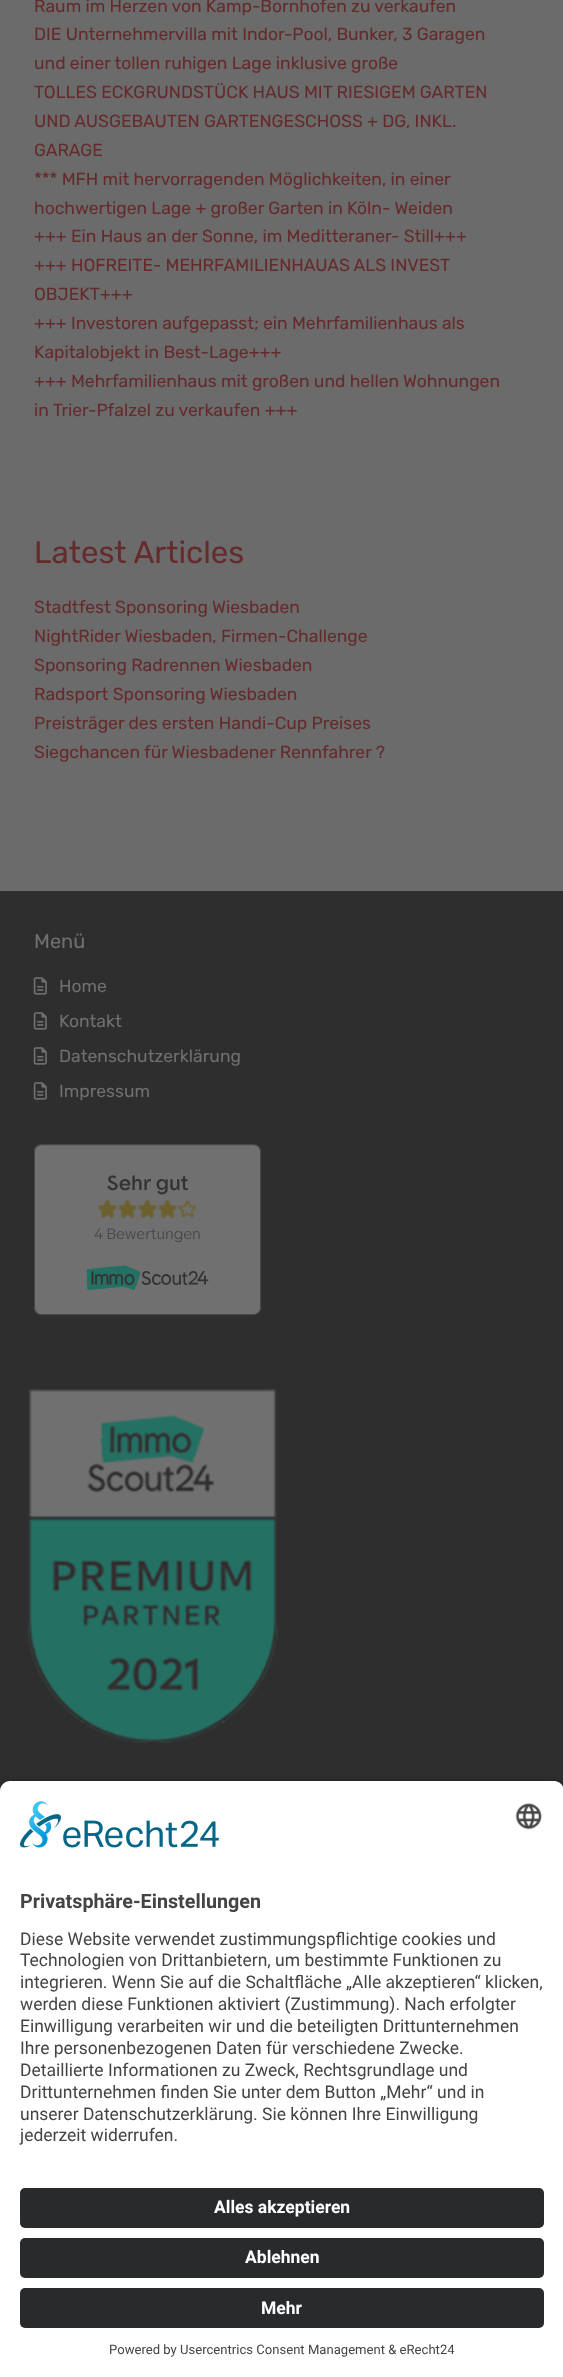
<svg xmlns="http://www.w3.org/2000/svg" width="563" height="2377">
<style>
.a{font:17.5px Rubik;fill:#652a2b}
.b{font:31.25px Rubik;fill:#652a2b}
.c{font:20px Rubik;fill:#707070}
.d{font:17.5px Rubik;fill:#707070}
.e{font:bold 19.75px Roboto;fill:#444}
.f{font:17.5px Roboto;fill:#444}
.g{font:bold 17.5px Roboto;fill:#fff}
.h{font:13.1px Roboto;fill:#444}
</style>
<rect width="100%" height="100%" fill="#6b6b6b"/>
<path fill="#2e2e2e" d="M0 891h563v900H0z"/>
<image href="1.png" x="33" y="977" width="14" height="18"/>
<image href="1.png" x="33" y="1012" width="14" height="18"/>
<image href="1.png" x="33" y="1047" width="14" height="18"/>
<image href="1.png" x="33" y="1082" width="14" height="18"/>
<image href="2.png" x="33" y="1144" width="229" height="172"/>
<image href="3.png" x="27" y="1388" width="251" height="355"/>
<rect fill="#000000cc" filter="blur(4.5px)" y="1785" width="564" height="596" rx="10"/>
<path fill="#fff" d="M10 1781h544c5.5 0 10 4.5 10 10v382h-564v-382c0-5.5 4.5-10 10-10z"/>
<image href="4.png" x="20" y="1801" width="199" height="47"/>
<image href="5.png" x="515" y="1803" width="27" height="27"/>
<path fill="#fff" d="M0 2173h563v204H0z"/>
<rect fill="#292a2b" x="20" y="2188" width="524" height="40" rx="5"/>
<rect fill="#292a2b" x="20" y="2238" width="524" height="40" rx="5"/>
<rect fill="#292a2b" x="20" y="2288" width="524" height="40" rx="5"/>
<text class="a" x="34" y="12">Raum im Herzen von Kamp-Bornhofen zu verkaufen</text>
<text class="a" x="34" y="40">DIE Unternehmervilla mit Indor-Pool, Bunker, 3 Garagen</text>
<text class="a" x="34" y="69">und einer tollen ruhigen Lage inklusive große</text>
<text class="a" x="34" y="98">TOLLES ECKGRUNDSTÜCK HAUS MIT RIESIGEM GARTEN</text>
<text class="a" x="34" y="127">UND AUSGEBAUTEN GARTENGESCHOSS + DG, INKL.</text>
<text class="a" x="34" y="156">GARAGE</text>
<text class="a" x="34" y="185">*** MFH mit hervorragenden Möglichkeiten, in einer</text>
<text class="a" x="34" y="214">hochwertigen Lage + großer Garten in Köln- Weiden</text>
<text class="a" x="34" y="242">+++ Ein Haus an der Sonne, im Meditteraner- Still+++</text>
<text class="a" x="34" y="271">+++ HOFREITE- MEHRFAMILIENHAUAS ALS INVEST</text>
<text class="a" x="34" y="300">OBJEKT+++</text>
<text class="a" x="34" y="329">+++ Investoren aufgepasst; ein Mehrfamilienhaus als</text>
<text class="a" x="34" y="358">Kapitalobjekt in Best-Lage+++</text>
<text class="a" x="34" y="387">+++ Mehrfamilienhaus mit großen und hellen Wohnungen</text>
<text class="a" x="34" y="416">in Trier-Pfalzel zu verkaufen +++</text>
<text class="b" x="34" y="563">Latest Articles</text>
<text class="a" x="34" y="613">Stadtfest Sponsoring Wiesbaden</text>
<text class="a" x="34" y="642">NightRider Wiesbaden, Firmen-Challenge</text>
<text class="a" x="34" y="671">Sponsoring Radrennen Wiesbaden</text>
<text class="a" x="34" y="700">Radsport Sponsoring Wiesbaden</text>
<text class="a" x="34" y="729">Preisträger des ersten Handi-Cup Preises</text>
<text class="a" x="34" y="758">Siegchancen für Wiesbadener Rennfahrer ?</text>
<text class="c" x="34" y="948">Menü</text>
<text class="d" x="59" y="992">Home</text>
<text class="d" x="59" y="1027">Kontakt</text>
<text class="d" x="59" y="1062">Datenschutzerklärung</text>
<text class="d" x="59" y="1097">Impressum</text>
<text class="e" x="20" y="1908">Privatsphäre-Einstellungen</text>
<text class="f" x="20" y="1945">Diese Website verwendet zustimmungspflichtige cookies und</text>
<text class="f" x="20" y="1966">Technologien von Drittanbietern, um bestimmte Funktionen zu</text>
<text class="f" x="20" y="1988">integrieren. Wenn Sie auf die Schaltfläche „Alle akzeptieren“ klicken,</text>
<text class="f" x="20" y="2010">werden diese Funktionen aktiviert (Zustimmung). Nach erfolgter</text>
<text class="f" x="20" y="2032">Einwilligung verarbeiten wir und die beteiligten Drittunternehmen</text>
<text class="f" x="20" y="2054">Ihre personenbezogenen Daten für verschiedene Zwecke.</text>
<text class="f" x="20" y="2076">Detaillierte Informationen zu Zweck, Rechtsgrundlage und</text>
<text class="f" x="20" y="2098">Drittunternehmen finden Sie unter dem Button „Mehr“ und in</text>
<text class="f" x="20" y="2120">unserer Datenschutzerklärung. Sie können Ihre Einwilligung</text>
<text class="f" x="20" y="2141">jederzeit widerrufen.</text>
<text class="g" x="214" y="2213">Alles akzeptieren</text>
<text class="g" x="245" y="2263">Ablehnen</text>
<text class="g" x="261" y="2314">Mehr</text>
<text class="h" x="109" y="2354">Powered by Usercentrics Consent Management &amp; eRecht24</text>
</svg>
